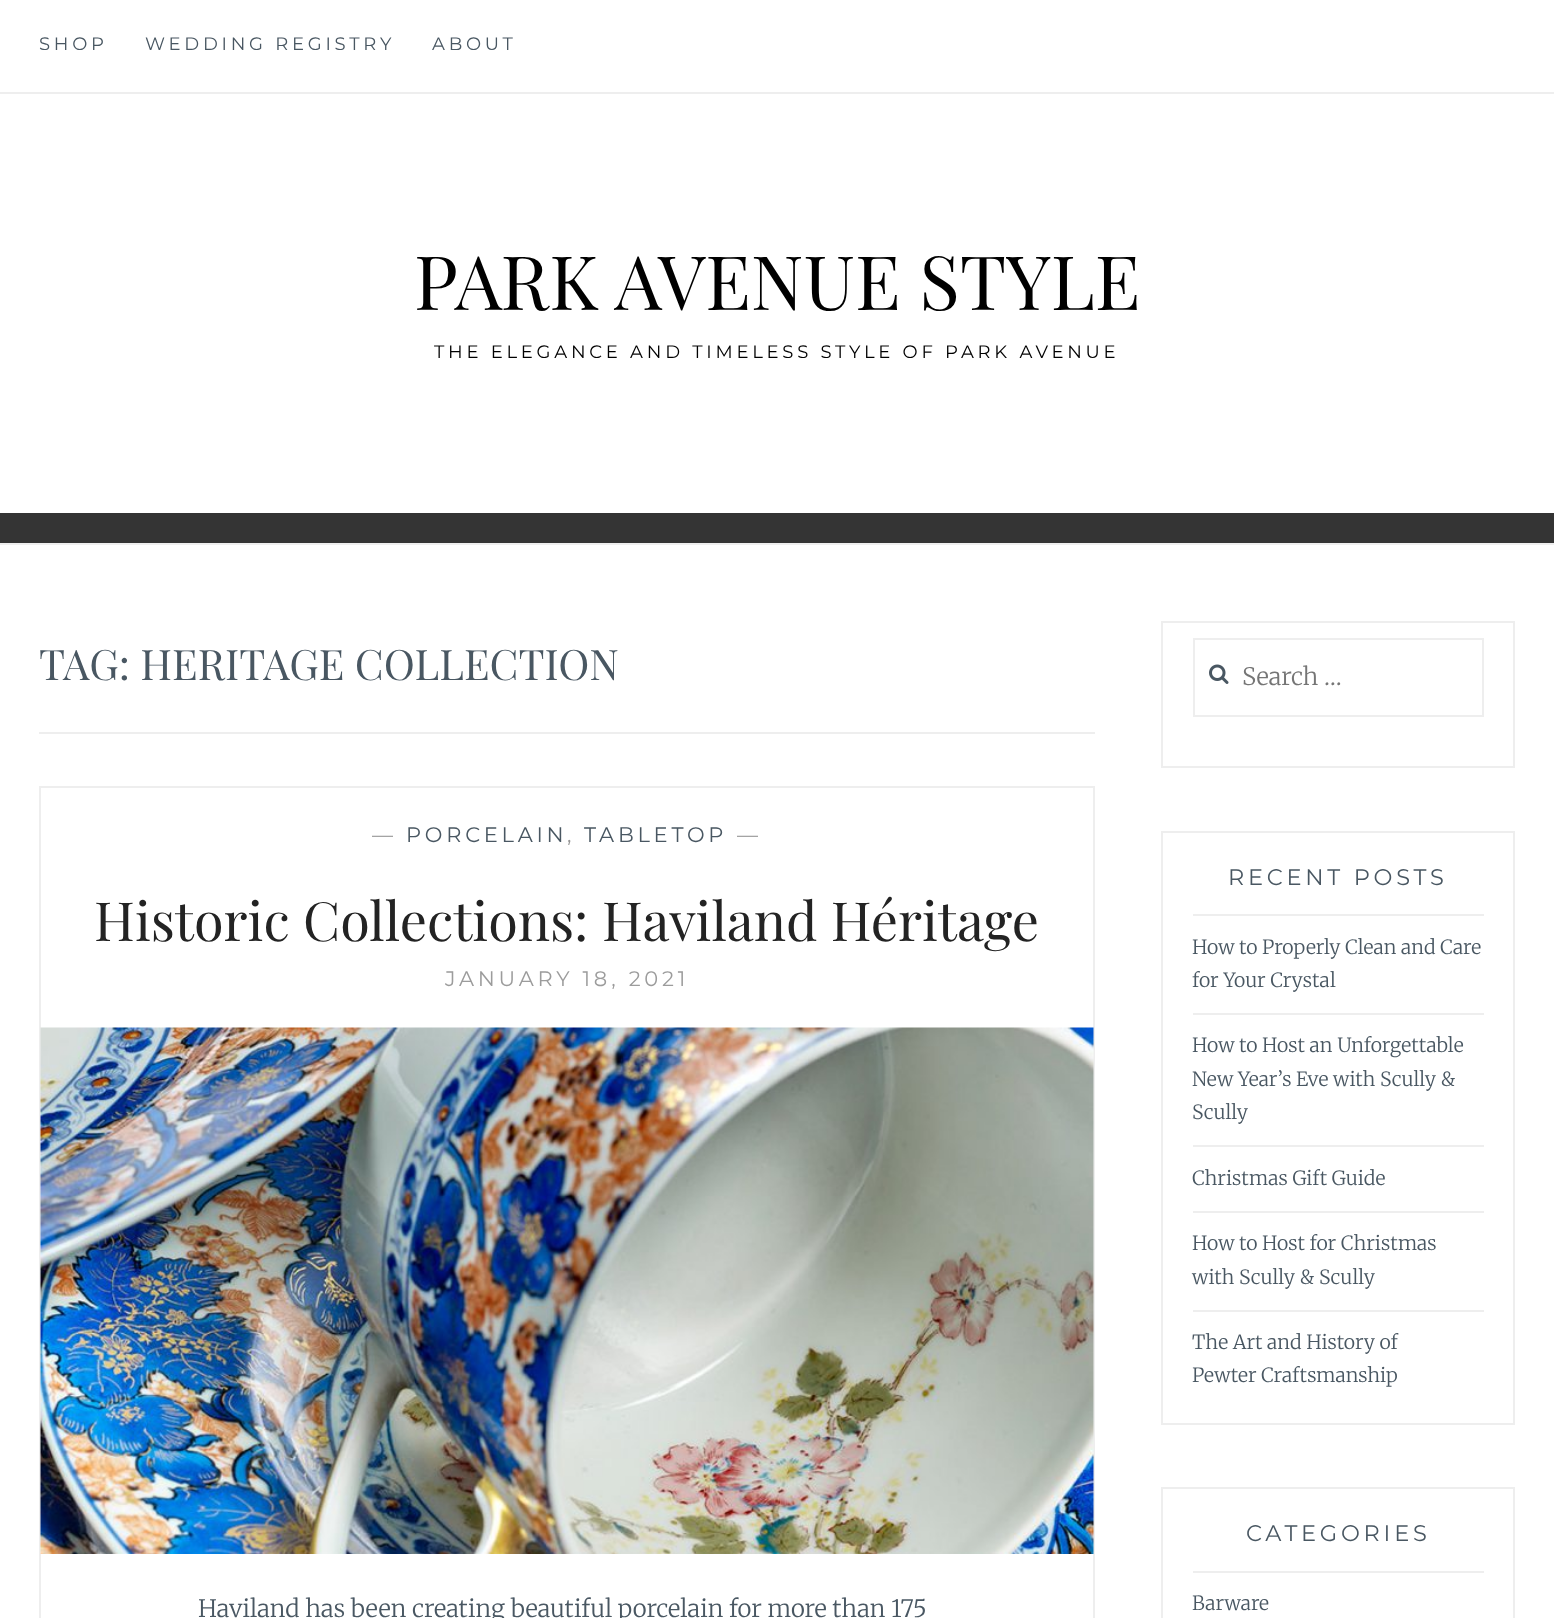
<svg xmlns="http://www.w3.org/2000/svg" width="1554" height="1618">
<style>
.a{font:18px Montserrat;letter-spacing:3.75px;fill:#495762}
.b{font:75px Playfair Display;fill:#000}
.c{font:18px Montserrat;letter-spacing:3.75px;fill:#000}
.d{font:42px Playfair Display;fill:#495762}
.e{font:21px Montserrat;letter-spacing:3.75px;fill:#949494}
.f{font:21px Montserrat;letter-spacing:3.75px;fill:#495762}
.g{font:54px Playfair Display;fill:#232323}
.h{font:21px Montserrat;letter-spacing:3.75px;fill:#9c9c9c}
.i{font:300 24px Merriweather;fill:#495762}
.j{font:300 24px Merriweather;fill:#757575}
.k{font:22.5px Montserrat;letter-spacing:3.75px;fill:#495762}
.l{font:300 19.5px Merriweather;fill:#495762}
</style>
<rect width="100%" height="100%" fill="#fff"/>
<path fill="#eee" d="M0 92h1554v2H0z"/>
<path fill="#343434" d="M0 513h1554v30H0z"/>
<path fill="#eee" d="M0 543h1554v2H0z"/>
<path fill="#eee" d="M39 732h1056v2H39z"/>
<path fill="none" stroke="#eee" stroke-width="2" d="M40 787h1054v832H40z"/>
<image href="1.png" x="40" y="1027" width="1054" height="527"/>
<path fill="none" stroke="#eee" stroke-width="2" d="M1162 622h352v145H1162z"/>
<path fill="none" stroke="#eee" stroke-width="2" d="M1194 639h289v77H1194z"/>
<image href="2.png" x="1209" y="664" width="20" height="20"/>
<path fill="none" stroke="#eee" stroke-width="2" d="M1162 832h352v592H1162z"/>
<path fill="#eee" d="M1193 914h291v2H1193z"/>
<path fill="#eee" d="M1193 1013h291v2H1193z"/>
<path fill="#eee" d="M1193 1145h291v2H1193z"/>
<path fill="#eee" d="M1193 1211h291v2H1193z"/>
<path fill="#eee" d="M1193 1310h291v2H1193z"/>
<path fill="none" stroke="#eee" stroke-width="2" d="M1162 1488h352v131H1162z"/>
<path fill="#eee" d="M1193 1571h291v2H1193z"/>
<text class="a" x="39" y="50">SHOP</text>
<text class="a" x="145" y="50">WEDDING REGISTRY</text>
<text class="a" x="432" y="50">ABOUT</text>
<text class="b" x="414" y="310">PARK AVENUE STYLE</text>
<text class="c" x="434" y="358">THE ELEGANCE AND TIMELESS STYLE OF PARK AVENUE</text>
<text class="d" x="39" y="680">TAG: HERITAGE COLLECTION</text>
<text class="e" x="372" y="842">—</text>
<text class="f" x="406" y="842">PORCELAIN</text>
<text class="f" x="584" y="842">TABLETOP</text>
<text class="e" x="737" y="842">—</text>
<text class="e" x="567" y="842">,</text>
<text class="g" x="94" y="941">Historic Collections: Haviland Héritage</text>
<text class="h" x="445" y="986">JANUARY 18, 2021</text>
<text class="i" x="198" y="1617">Haviland has been creating beautiful porcelain for more than 175</text>
<text class="j" x="1242" y="685">Search …</text>
<text class="k" x="1228" y="885">RECENT POSTS</text>
<text class="l" x="1192" y="954">How to Properly Clean and Care</text>
<text class="l" x="1192" y="987">for Your Crystal</text>
<text class="l" x="1192" y="1052">How to Host an Unforgettable</text>
<text class="l" x="1192" y="1086">New Year’s Eve with Scully &amp;</text>
<text class="l" x="1192" y="1119">Scully</text>
<text class="l" x="1192" y="1185">Christmas Gift Guide</text>
<text class="l" x="1192" y="1250">How to Host for Christmas</text>
<text class="l" x="1192" y="1284">with Scully &amp; Scully</text>
<text class="l" x="1192" y="1349">The Art and History of</text>
<text class="l" x="1192" y="1382">Pewter Craftsmanship</text>
<text class="k" x="1246" y="1541">CATEGORIES</text>
<text class="l" x="1192" y="1610">Barware</text>
</svg>
